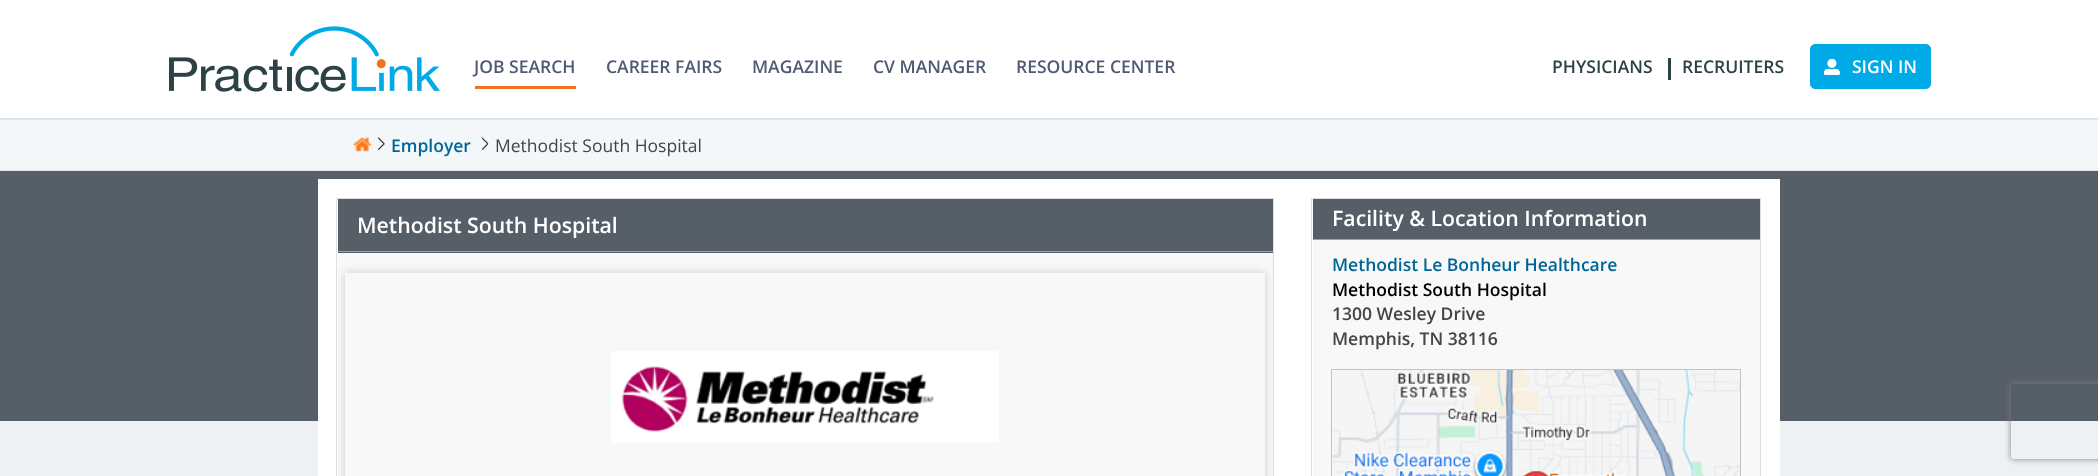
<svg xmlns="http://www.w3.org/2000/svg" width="2098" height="476">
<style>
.a{font:600 17.5px Open Sans;fill:#4e5b73}
.b{font:600 17.5px Open Sans;fill:#2d4245}
.c{font:600 17.5px Open Sans;fill:#fff}
.d{font:600 17.5px Open Sans;fill:#069}
.e{font:17.5px Open Sans;fill:#444}
.f{font:600 21.25px Open Sans;fill:#fff}
.g{font:600 17.5px Open Sans;fill:#000}
.h{font:600 17.5px Open Sans;fill:#444}
</style>
<defs>
<clipPath id="clip1"><path d="M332 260h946v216h-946zm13 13h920v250h-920z" clip-rule="evenodd"/></clipPath>
<clipPath id="clip2"><path d="M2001 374h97v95h-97zm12.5 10h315c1.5 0 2.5 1 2.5 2.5v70c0 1.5-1 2.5-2.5 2.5h-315c-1.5 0-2.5-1-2.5-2.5v-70c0-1.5 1-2.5 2.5-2.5z" clip-rule="evenodd"/></clipPath>
</defs>
<rect width="100%" height="100%" fill="#f4f7f9"/>
<path fill="#fff" d="M0 0h2098v118H0z"/>
<path fill="#dfdfdf" d="M0 118h2098v1H0z"/>
<image href="1.png" x="169" y="26" width="271" height="66"/>
<path fill="#f37021" d="M475 86h101v3H475z"/>
<path fill="#2d4245" d="M1668 58h3v22H1668z"/>
<rect fill="#00aae7" stroke="#00aae7" x="1810.5" y="44.5" width="120" height="44" rx="4.5"/>
<image href="2.png" x="1824" y="59" width="16" height="16"/>
<path fill="#e3e3e3" d="M0 119h2098v1H0z"/>
<path fill="#e3e3e3" d="M0 170h2098v1H0z"/>
<image href="3.png" x="353" y="137" width="19" height="15"/>
<image href="4.png" x="377" y="137" width="8" height="13"/>
<image href="5.png" x="481" y="137" width="8" height="13"/>
<path fill="#edf1f3" d="M0 421h2098v55H0z"/>
<path fill="#565e67" d="M0 171h2098v250H0z"/>
<path fill="#fff" d="M318 179h1462v297H318z"/>
<path fill="none" stroke="#ddd" d="M336.5 198.5h937v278H336.5z"/>
<path fill="#565e67" d="M338 199h935v54H338z"/>
<path fill="#a1a1a1" d="M338 251h935v1H338z"/>
<path fill="#f8f8f8" d="M338 253h935v223H338z"/>
<g clip-path="url(#clip1)">
<path fill="#ccc" filter="blur(4px)" d="M345 273h920v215H345z"/>
</g>
<image href="6.png" x="611" y="351" width="388" height="92"/>
<path fill="none" stroke="#ddd" d="M1311.5 198.5h449v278H1311.5z"/>
<path fill="#565e67" d="M1313 199h447v40H1313z"/>
<path fill="#a1a1a1" d="M1313 239h447v1H1313z"/>
<path fill="#f8f8f8" d="M1313 240h447v236H1313z"/>
<path fill="none" stroke="#c2c2c2" d="M1331.5 369.5h409v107H1331.5z"/>
<image href="7.png" x="1332" y="370" width="408" height="106"/>
<g clip-path="url(#clip2)">
<rect fill="#808080" filter="blur(3px)" x="2011" y="384" width="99" height="75" rx="2.5"/>
</g>
<text class="a" x="474" y="73">JOB SEARCH</text>
<text class="a" x="606" y="73">CAREER FAIRS</text>
<text class="a" x="752" y="73">MAGAZINE</text>
<text class="a" x="873" y="73">CV MANAGER</text>
<text class="a" x="1016" y="73">RESOURCE CENTER</text>
<text class="b" x="1552" y="73">PHYSICIANS</text>
<text class="b" x="1682" y="73">RECRUITERS</text>
<text class="c" x="1852" y="73">SIGN IN</text>
<text class="d" x="391" y="152">Employer</text>
<text class="e" x="495" y="152">Methodist South Hospital</text>
<text class="f" x="357" y="233">Methodist South Hospital</text>
<text class="f" x="1332" y="226">Facility &amp; Location Information</text>
<text class="d" x="1332" y="271">Methodist Le Bonheur Healthcare</text>
<text class="g" x="1332" y="296">Methodist South Hospital</text>
<text class="h" x="1332" y="320">1300 Wesley Drive</text>
<text class="h" x="1332" y="345">Memphis, TN 38116</text>
</svg>
